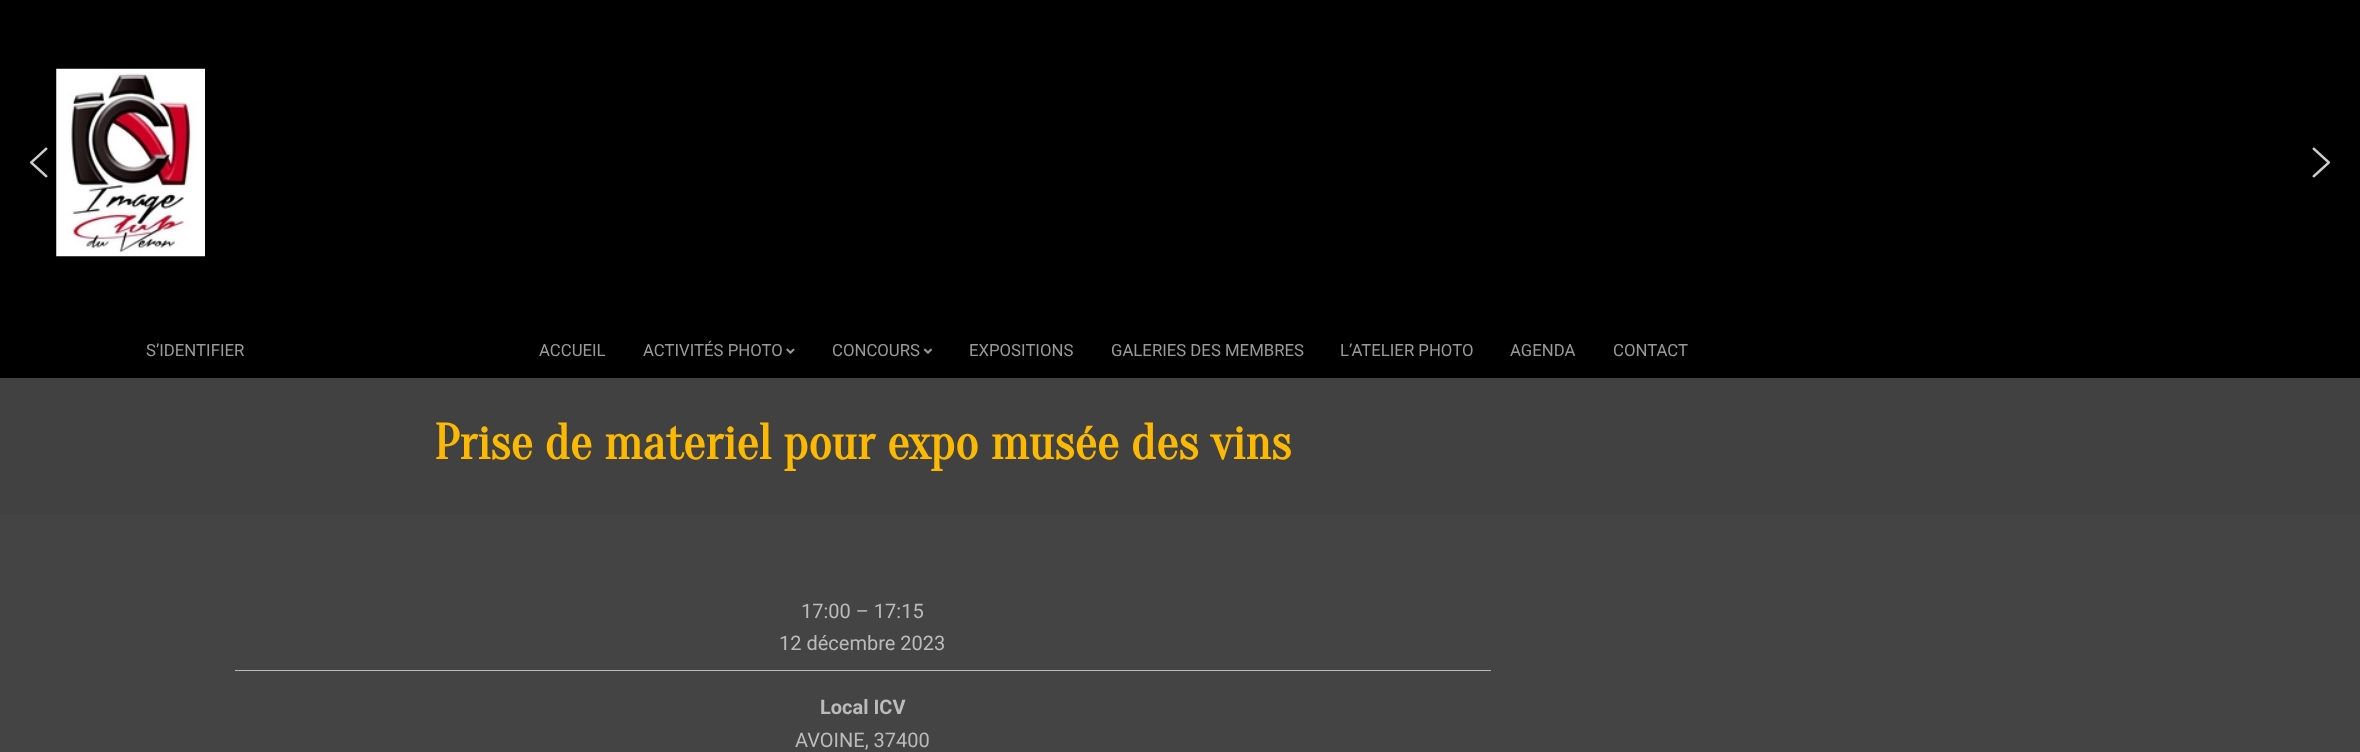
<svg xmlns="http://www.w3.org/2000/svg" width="2360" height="752">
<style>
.a{font:16.75px Roboto;fill:#999}
.b{font:bold 50px Oranienbaum;fill:#fcb900}
.c{font:20px Roboto;fill:#bbb}
.d{font:bold 20px Roboto;fill:#bbb}
</style>
<rect width="100%" height="100%" fill="#000"/>
<image href="1.png" x="56" y="68" width="149" height="189"/>
<image href="2.png" x="30" y="147" width="18" height="31"/>
<image href="3.png" x="2312" y="147" width="18" height="31"/>
<image href="4.png" x="786" y="348" width="9" height="6"/>
<image href="5.png" x="923" y="348" width="10" height="6"/>
<path fill="#444" d="M0 515h2360v237H0z"/>
<path fill="#414141" d="M0 378h2360v137H0z"/>
<path fill="#bbb" d="M235 670h1256v1H235z"/>
<text class="a" x="146" y="356">S’IDENTIFIER</text>
<text class="a" x="539" y="356">ACCUEIL</text>
<text class="a" x="643" y="356">ACTIVITÉS PHOTO</text>
<text class="a" x="832" y="356">CONCOURS</text>
<text class="a" x="969" y="356">EXPOSITIONS</text>
<text class="a" x="1111" y="356">GALERIES DES MEMBRES</text>
<text class="a" x="1340" y="356">L’ATELIER PHOTO</text>
<text class="a" x="1510" y="356">AGENDA</text>
<text class="a" x="1613" y="356">CONTACT</text>
<text class="b" x="434" y="459">Prise de materiel pour expo musée des vins</text>
<text class="c" x="801" y="618">17:00 – 17:15</text>
<text class="c" x="779" y="650">12 décembre 2023</text>
<text class="d" x="820" y="714">Local ICV</text>
<text class="c" x="795" y="747">AVOINE, 37400</text>
</svg>
